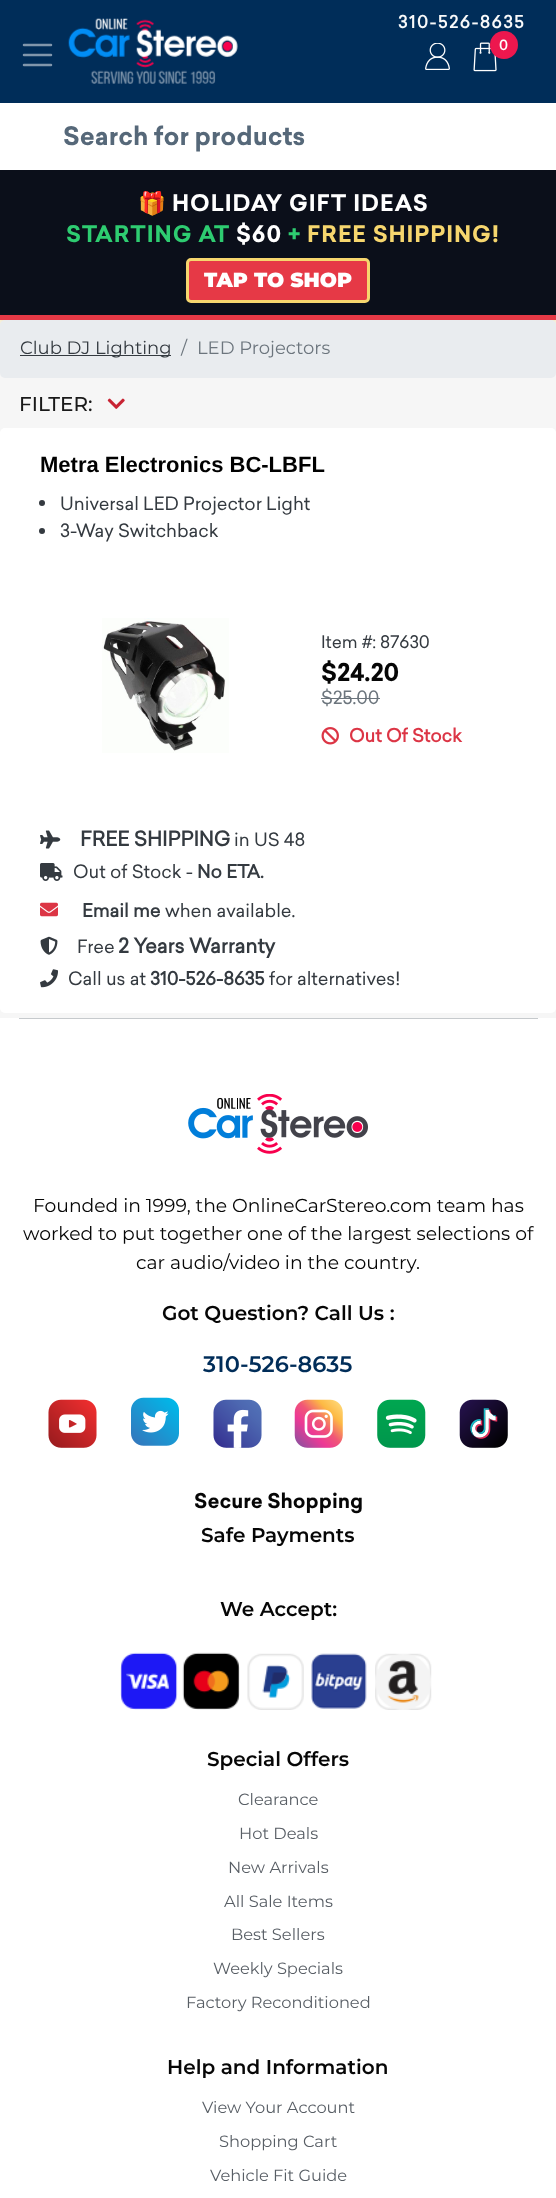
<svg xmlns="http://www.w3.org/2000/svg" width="556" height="2198">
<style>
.a{font:500 17.5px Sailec;letter-spacing:1.25px;fill:#f8f9fa}
.b{font:500 14px Sailec;letter-spacing:1.25px;fill:#fff}
.c{font:bold 25px Sailec;fill:#566879}
.d{font:bold 22.5px Noto Color Emoji;letter-spacing:0.9px;fill:#fff}
.e{font:bold 22.5px Sailec;letter-spacing:0.9px;fill:#fff}
.f{font:bold 22.5px Sailec;letter-spacing:0.9px;fill:#2ecc71}
.g{font:bold 22.5px Sailec;letter-spacing:0.9px;fill:#f6d66e}
.h{font:900 20.25px Montserrat;fill:#fff}
.i{font:18px Montserrat;fill:#343a40}
.j{font:18px Montserrat;fill:#6c757d}
.k{font:500 20px Montserrat;fill:#191919}
.l{font:bold 22px Liberation Sans;fill:#000}
.m{font:18px Sailec;fill:#343a40}
.n{font:17px Sailec;fill:#343a40}
.o{font:bold 24px Sailec;fill:#060606}
.p{font:18px Sailec;fill:#6c757d}
.q{font:bold 18px 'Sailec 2';fill:#dc3545}
.r{font:bold 20px 'Sailec 2';fill:#343a40}
.s{font:bold 18px 'Sailec 2';fill:#343a40}
.t{font:18.75px Montserrat;fill:#060606}
.u{font:600 20px Montserrat;fill:#060606}
.v{font:600 22.5px Montserrat;fill:#002d59}
.w{font:bold 20px Sailec;fill:#060606}
.x{font:16.25px Montserrat;fill:#585e65}
</style>
<rect width="100%" height="100%" fill="#f6f6f6"/>
<path fill="#002d59" d="M0 0h556v103H0z"/>
<image href="1.png" x="68" y="18" width="170" height="66"/>
<image href="2.png" x="425" y="43" width="25" height="27"/>
<image href="3.png" x="473" y="42" width="24" height="30"/>
<circle fill="#ed174e" cx="504" cy="45" r="14"/>
<path fill="none" stroke="#8096ac" stroke-width="2.5" stroke-linecap="round" d="M24 45h27m-27 10h27m-27 10h27"/>
<path fill="#f6d66e" filter="blur(7.5px)" d="M0 170h556v150H0z"/>
<path fill="#fff" d="M0 103h556v67H0z"/>
<path fill="#0b0f1a" d="M0 170h556v145H0z"/>
<path fill="#e63946" d="M0 315h556v5H0z"/>
<rect fill="#e63946" stroke="#f6d66e" stroke-width="3" x="187.5" y="259.5" width="181" height="42" rx="3.5"/>
<rect fill="#e9ecef" y="320" width="556" height="58" rx="5"/>
<path fill="#343a40" d="M20 355h151v1H20z"/>
<image href="4.png" x="107" y="398" width="18" height="11"/>
<rect fill="#fff" y="428" width="556" height="585" rx="5"/>
<circle fill="#343a40" cx="42" cy="503" r="3"/>
<circle fill="#343a40" cx="42" cy="531" r="3"/>
<image href="5.png" x="102" y="618" width="127" height="135"/>
<path fill="#6c757d" d="M321 698h59v1H321z"/>
<image href="6.png" x="321" y="727" width="18" height="18"/>
<image href="7.png" x="40" y="830" width="21" height="19"/>
<image href="8.png" x="40" y="863" width="23" height="18"/>
<image href="9.png" x="40" y="902" width="18" height="15"/>
<image href="10.png" x="40" y="936" width="18" height="19"/>
<image href="11.png" x="40" y="969" width="18" height="19"/>
<path fill="#fff" d="M0 1018h556v1180H0z"/>
<path fill="#c6cacd" d="M19 1018h519v1H19z"/>
<image href="12.png" x="188" y="1094" width="180" height="60"/>
<image href="13.png" x="48" y="1399" width="49" height="49"/>
<image href="14.png" x="131" y="1397" width="48" height="49"/>
<image href="15.png" x="213" y="1399" width="49" height="49"/>
<image href="16.png" x="294" y="1399" width="49" height="49"/>
<image href="17.png" x="377" y="1399" width="49" height="49"/>
<image href="18.png" x="459" y="1399" width="49" height="49"/>
<image href="19.png" x="120" y="1652" width="58" height="58"/>
<image href="20.png" x="182" y="1652" width="58" height="58"/>
<image href="21.png" x="247" y="1653" width="57" height="57"/>
<image href="22.png" x="311" y="1653" width="56" height="56"/>
<image href="23.png" x="375" y="1653" width="57" height="57"/>
<text class="a" x="398" y="28">310-526-8635</text>
<text class="b" x="499" y="50">0</text>
<text class="c" x="63" y="145">Search for products</text>
<text class="d" x="138" y="211">🎁</text>
<text class="e" x="172" y="211">HOLIDAY GIFT IDEAS</text>
<text class="f" x="66" y="242">STARTING AT</text>
<text class="e" x="236" y="242">$60</text>
<text class="f" x="288" y="242">+</text>
<text class="g" x="307" y="242">FREE SHIPPING!</text>
<text class="h" x="204" y="287">TAP TO SHOP</text>
<text class="i" x="20" y="354">Club DJ Lighting</text>
<text class="j" x="181" y="354">/</text>
<text class="j" x="197" y="354">LED Projectors</text>
<text class="k" x="19" y="411">FILTER:</text>
<text class="l" x="40" y="472">Metra Electronics BC-LBFL</text>
<text class="m" x="60" y="510">Universal LED Projector Light</text>
<text class="m" x="60" y="537">3-Way Switchback</text>
<text class="n" x="321" y="648">Item #: 87630</text>
<text class="o" x="321" y="681">$24.20</text>
<text class="p" x="321" y="704">$25.00</text>
<text class="q" x="349" y="742">Out Of Stock</text>
<text class="r" x="80" y="846">FREE SHIPPING</text>
<text class="m" x="234" y="846">in US 48</text>
<text class="m" x="73" y="878">Out of Stock -</text>
<text class="s" x="197" y="878">No ETA.</text>
<text class="s" x="82" y="917">Email me</text>
<text class="m" x="165" y="917">when available.</text>
<text class="m" x="77" y="953">Free</text>
<text class="r" x="118" y="953">2 Years Warranty</text>
<text class="m" x="68" y="985">Call us at</text>
<text class="s" x="150" y="985">310-526-8635</text>
<text class="m" x="269" y="985">for alternatives!</text>
<text class="t" x="33" y="1212">Founded in 1999, the OnlineCarStereo.com team has</text>
<text class="t" x="23" y="1240">worked to put together one of the largest selections of</text>
<text class="t" x="136" y="1269">car audio/video in the country.</text>
<text class="u" x="162" y="1320">Got Question? Call Us :</text>
<text class="v" x="203" y="1372">310-526-8635</text>
<text class="w" x="194" y="1508">Secure Shopping</text>
<text class="u" x="201" y="1542">Safe Payments</text>
<text class="u" x="220" y="1616">We Accept:</text>
<text class="u" x="207" y="1766">Special Offers</text>
<text class="x" x="238" y="1805">Clearance</text>
<text class="x" x="239" y="1839">Hot Deals</text>
<text class="x" x="228" y="1873">New Arrivals</text>
<text class="x" x="224" y="1907">All Sale Items</text>
<text class="x" x="231" y="1940">Best Sellers</text>
<text class="x" x="213" y="1974">Weekly Specials</text>
<text class="x" x="186" y="2008">Factory Reconditioned</text>
<text class="u" x="167" y="2074">Help and Information</text>
<text class="x" x="202" y="2113">View Your Account</text>
<text class="x" x="219" y="2147">Shopping Cart</text>
<text class="x" x="210" y="2181">Vehicle Fit Guide</text>
</svg>
